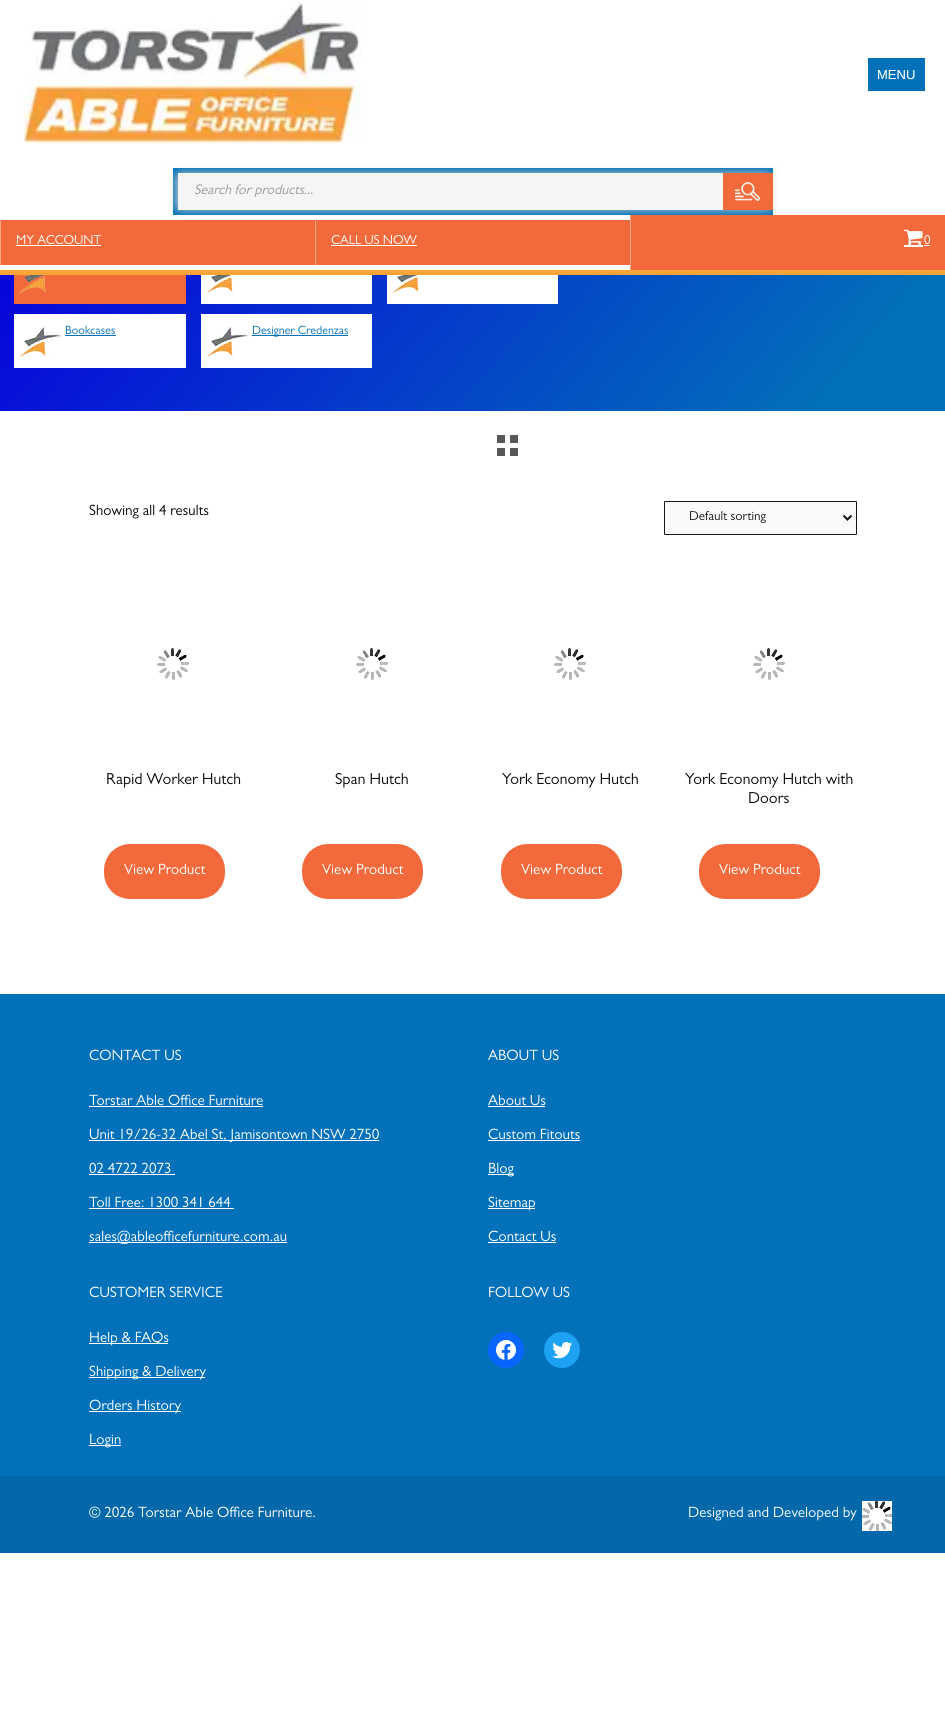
<svg xmlns="http://www.w3.org/2000/svg" width="945" height="1735">
<style>
.a{font:13px Liberation Sans;fill:#fff}
</style>
<defs>
<linearGradient id="g1" gradientUnits="userSpaceOnUse" x1="151" y1="50" x2="794" y2="591"><stop offset="0" stop-color="#0700dd"/><stop offset="0.89" stop-color="#0271b9"/></linearGradient>
</defs>
<rect width="100%" height="100%" fill="#fff"/>
<path fill="#faa336" d="M0 270h945v5H0z"/>
<image href="1.png" x="23" y="2" width="338" height="142"/>
<path fill="#0271b9" d="M868 58h57v33H868z"/>
<path fill="#0271b9" d="M173 168h600v5H173z"/>
<path fill="#0271b9" d="M173 210h600v5H173z"/>
<path fill="#0271b9" d="M173 168h5v47H173z"/>
<path fill="#ccc" filter="blur(5px)" d="M176 173h595v37H176z"/>
<path fill="#f5f5f5" d="M179 173h544v37H179z"/>
<path fill="#f1f1f1" d="M178 173h1v37H178z"/>
<image href="2.png" x="195" y="184" width="118" height="13"/>
<path fill="#f26a3b" d="M723 173h50v37H723z"/>
<image href="3.png" x="735" y="182" width="25" height="19"/>
<path fill="#f26a3b" d="M1 220h314v45H1z"/>
<path fill="#f7a689" d="M0 220h1v45H0z"/>
<image href="4.png" x="17" y="235" width="84" height="10"/>
<path fill="#fff" d="M16 245h85v1H16z"/>
<path fill="#f26a3b" d="M316 220h314v45H316z"/>
<path fill="#f7a689" d="M315 220h1v45H315z"/>
<image href="5.png" x="331" y="235" width="86" height="10"/>
<path fill="#fff" d="M331 245h86v1H331z"/>
<path fill="#f26a3b" d="M631 215h314v55H631z"/>
<path fill="#f7a689" d="M630 215h1v55H630z"/>
<image href="6.png" x="904" y="229" width="19" height="16"/>
<path fill="#fff" d="M904 245h19v2H904z"/>
<image href="7.png" x="924" y="235" width="7" height="10"/>
<path fill="#fff" d="M924 245h6v1H924z"/>
<path fill="url(#g1)" d="M0 275h945v136H0z"/>
<path fill="#f26a3b" d="M14 275h172v29H14z"/>
<image href="8.png" x="18" y="275" width="28" height="19"/>
<path fill="#fff" d="M201 275h171v29H201z"/>
<image href="9.png" x="205" y="275" width="28" height="19"/>
<path fill="#fff" d="M387 275h171v29H387z"/>
<image href="9.png" x="391" y="275" width="28" height="19"/>
<path fill="#fff" d="M14 314h172v54H14z"/>
<image href="10.png" x="18" y="326" width="44" height="32"/>
<image href="11.png" x="65" y="325" width="50" height="10"/>
<path fill="#0271b9" d="M65 335h51v1H65z"/>
<path fill="#fff" d="M201 314h171v54H201z"/>
<image href="10.png" x="205" y="326" width="44" height="32"/>
<path fill="#0271b9" d="M252 335h96v1H252z"/>
<image href="12.png" x="252" y="325" width="96" height="12"/>
<path fill="#58585a" d="M497 435h8v8H497z"/>
<path fill="#58585a" d="M510 435h8v8H510z"/>
<path fill="#58585a" d="M497 448h8v8H497z"/>
<path fill="#58585a" d="M510 448h8v8H510z"/>
<image href="13.png" x="89" y="504" width="120" height="15"/>
<path fill="#fafafa" stroke="#181818" d="M664.5 501.5h192v33H664.5z"/>
<path fill="none" stroke="#181818" stroke-width="2" d="M843.5 515.5l4 4l4-4"/>
<image href="14.png" x="690" y="511" width="76" height="12"/>
<image href="15.png" x="157" y="648" width="32" height="32"/>
<image href="16.png" x="107" y="773" width="134" height="15"/>
<rect fill="#f26a3b" x="104" y="844" width="121" height="55" rx="26"/>
<image href="17.png" x="124" y="863" width="82" height="12"/>
<image href="15.png" x="356" y="648" width="32" height="32"/>
<image href="18.png" x="335" y="773" width="73" height="15"/>
<rect fill="#f26a3b" x="302" y="844" width="121" height="55" rx="26"/>
<image href="17.png" x="322" y="863" width="82" height="12"/>
<image href="15.png" x="554" y="648" width="32" height="32"/>
<image href="19.png" x="502" y="773" width="136" height="15"/>
<rect fill="#f26a3b" x="501" y="844" width="121" height="55" rx="26"/>
<image href="17.png" x="521" y="863" width="82" height="12"/>
<image href="15.png" x="753" y="648" width="32" height="32"/>
<image href="20.png" x="685" y="773" width="168" height="15"/>
<image href="21.png" x="749" y="792" width="40" height="12"/>
<rect fill="#f26a3b" x="699" y="844" width="121" height="55" rx="26"/>
<image href="17.png" x="719" y="863" width="82" height="12"/>
<path fill="#0271b9" d="M0 994h945v482H0z"/>
<image href="22.png" x="89" y="1049" width="93" height="12"/>
<image href="23.png" x="89" y="1094" width="174" height="12"/>
<path fill="#fff" d="M89 1106h174v1H89z"/>
<path fill="#fff" d="M89 1140h290v1H89z"/>
<image href="24.png" x="89" y="1128" width="290" height="15"/>
<image href="25.png" x="89" y="1162" width="82" height="12"/>
<path fill="#fff" d="M89 1174h86v1H89z"/>
<image href="26.png" x="89" y="1196" width="142" height="12"/>
<path fill="#fff" d="M89 1208h145v1H89z"/>
<path fill="#fff" d="M89 1242h198v1H89z"/>
<image href="27.png" x="89" y="1230" width="198" height="15"/>
<image href="28.png" x="488" y="1049" width="71" height="12"/>
<image href="29.png" x="488" y="1094" width="58" height="12"/>
<path fill="#fff" d="M488 1106h57v1H488z"/>
<image href="30.png" x="488" y="1128" width="92" height="12"/>
<path fill="#fff" d="M488 1140h92v1H488z"/>
<path fill="#fff" d="M488 1174h25v1H488z"/>
<image href="31.png" x="489" y="1162" width="25" height="15"/>
<path fill="#fff" d="M488 1208h47v1H488z"/>
<image href="32.png" x="488" y="1196" width="47" height="15"/>
<image href="33.png" x="488" y="1230" width="68" height="12"/>
<path fill="#fff" d="M488 1242h68v1H488z"/>
<image href="34.png" x="89" y="1286" width="134" height="12"/>
<path fill="#fff" d="M89 1343h79v1H89z"/>
<image href="35.png" x="90" y="1331" width="79" height="15"/>
<path fill="#fff" d="M89 1377h116v1H89z"/>
<image href="36.png" x="89" y="1365" width="117" height="15"/>
<path fill="#fff" d="M89 1411h92v1H89z"/>
<image href="37.png" x="89" y="1399" width="92" height="15"/>
<path fill="#fff" d="M89 1445h32v1H89z"/>
<image href="38.png" x="90" y="1433" width="31" height="15"/>
<image href="39.png" x="489" y="1286" width="81" height="12"/>
<circle fill="#0866ff" cx="506" cy="1350" r="18"/>
<image href="40.png" x="496" y="1340" width="20" height="20"/>
<circle fill="#1da1f2" cx="562" cy="1350" r="18"/>
<image href="41.png" x="552" y="1342" width="20" height="17"/>
<path fill="#0268aa" d="M0 1476h945v77H0z"/>
<image href="42.png" x="89" y="1506" width="226" height="12"/>
<image href="43.png" x="689" y="1506" width="168" height="15"/>
<path fill="#fff" d="M862 1501h30v30H862z"/>
<image href="44.png" x="862" y="1501" width="30" height="30"/>
<text class="a" x="877" y="79">MENU</text>
</svg>
